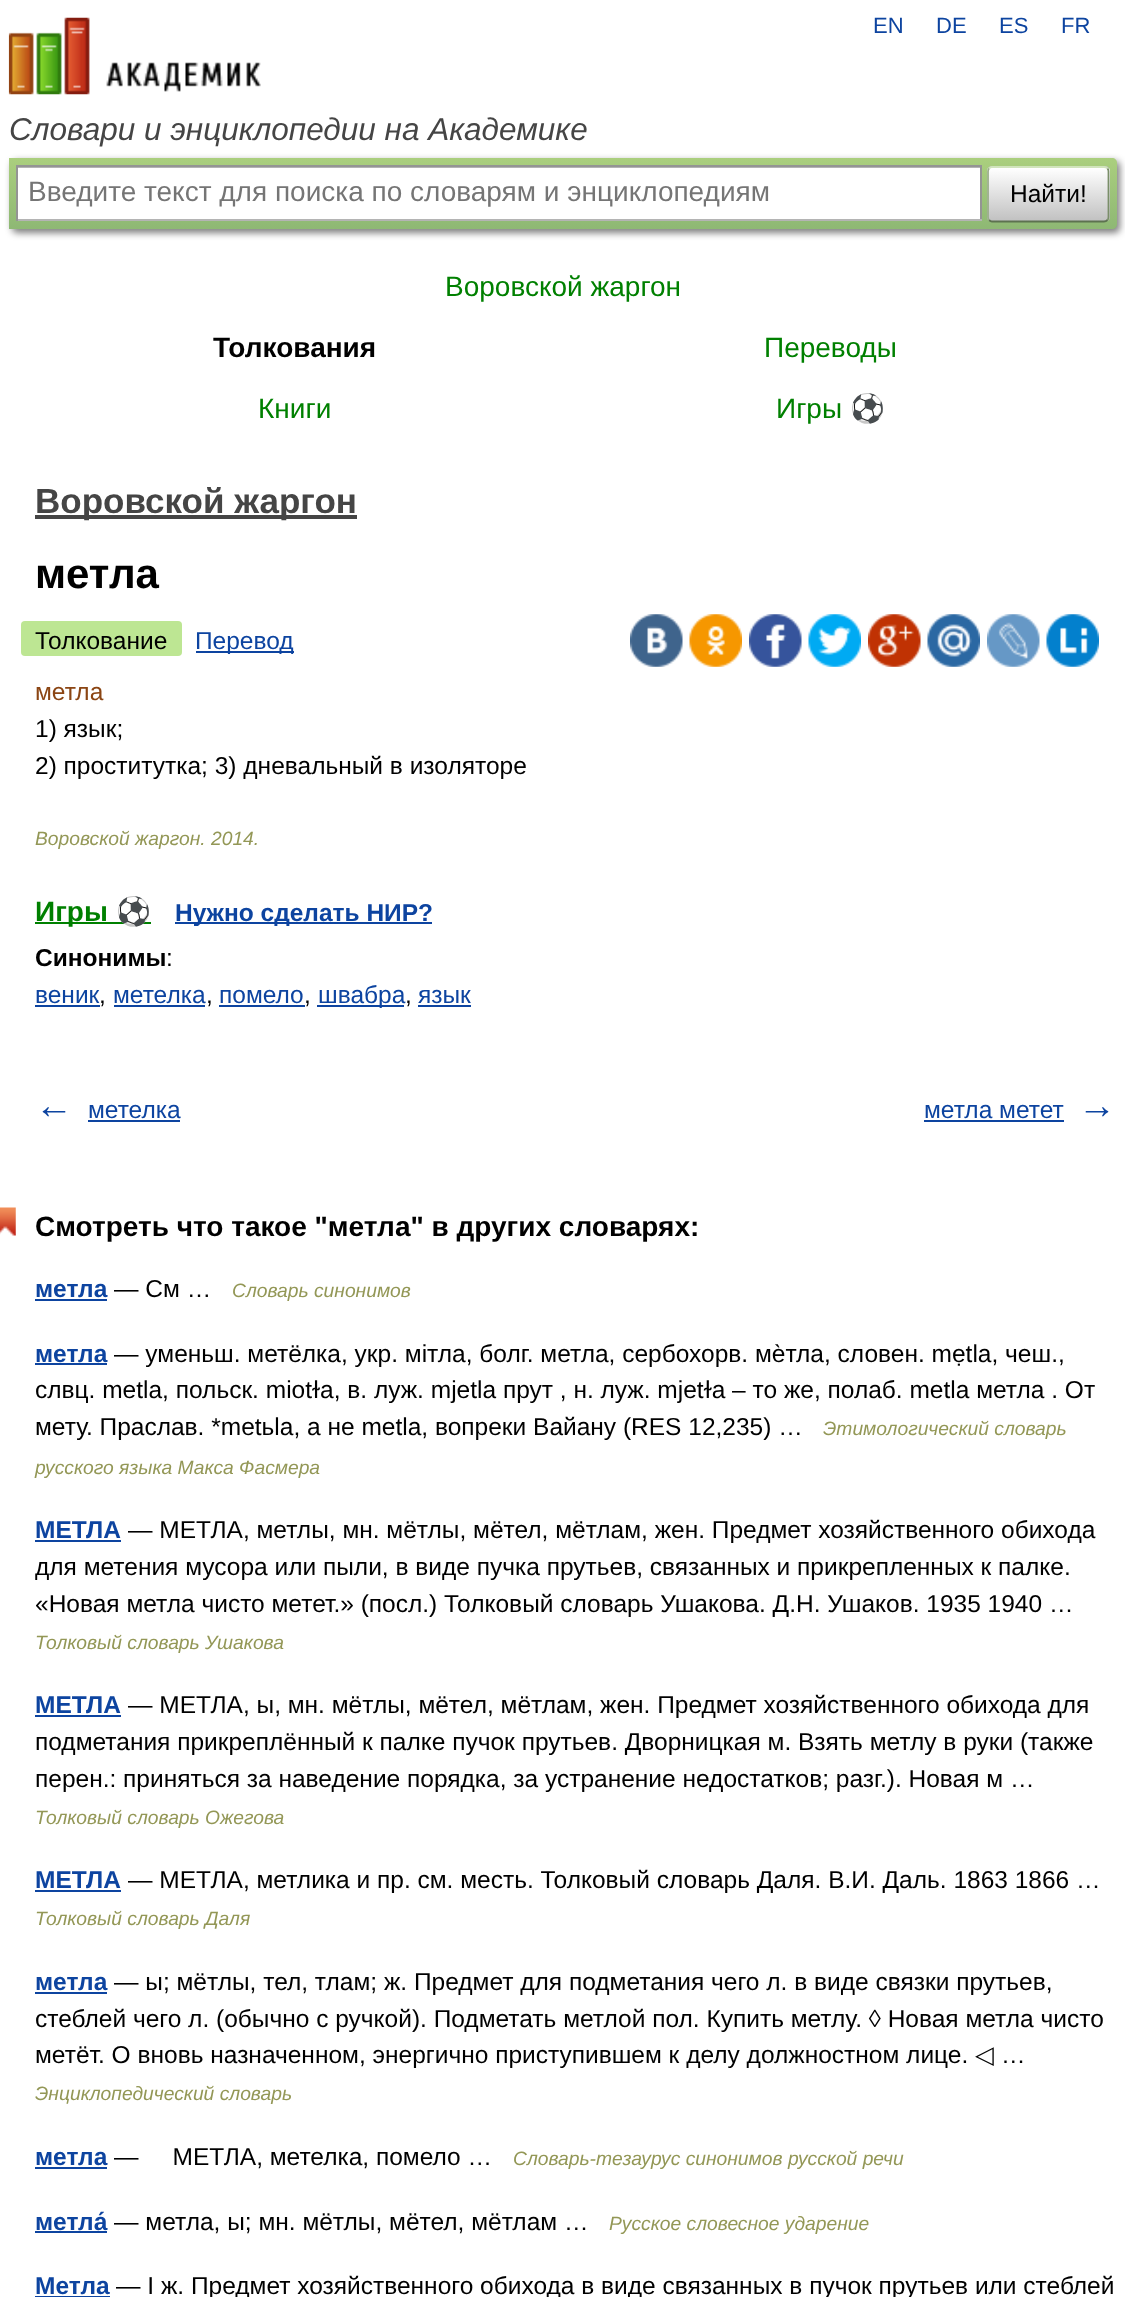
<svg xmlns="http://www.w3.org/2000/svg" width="1125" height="2297">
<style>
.a{font:22px Liberation Sans;fill:#0d44a0}
.b{font:italic 31.5px Liberation Sans;fill:#454545}
.c{font:28px Liberation Sans;fill:#757575}
.d{font:24.5px Liberation Sans;fill:#000}
.e{font:28px Liberation Sans;fill:#008000}
.f{font:bold 28px Liberation Sans;fill:#000}
.g{font:28px Noto Color Emoji;fill:#008000}
.h{font:bold 35px Liberation Sans;fill:#454545}
.i{font:bold 42px Liberation Sans;fill:#000}
.j{font:24.5px Liberation Sans;fill:#0d44a0}
.k{font:24.5px Liberation Sans;fill:#8b4513}
.l{font:italic 19.25px Liberation Sans;fill:#939756}
.m{font:bold 28px Liberation Sans;fill:#008000}
.n{font:bold 28px Noto Color Emoji;fill:#008000}
.o{font:bold 24.5px Liberation Sans;fill:#0d44a0}
.p{font:bold 24.5px Liberation Sans;fill:#000}
.q{font:bold 38px Liberation Sans;fill:#0d44a0}
.r{font:24.5px DejaVu Sans;fill:#000}
</style>
<defs>
<linearGradient id="g1" gradientUnits="userSpaceOnUse" x1="563" y1="157" x2="563" y2="229"><stop offset="0" stop-color="#abcf7e"/><stop offset="1" stop-color="#8eb874"/></linearGradient>
<clipPath id="clip1"><rect x="987" y="166" width="123" height="56" rx="5"/></clipPath>
<linearGradient id="g2" gradientUnits="userSpaceOnUse" x1="1048" y1="116" x2="1048" y2="168"><stop offset="0" stop-color="#fff"/><stop offset="1" stop-color="#c1c1c1"/></linearGradient>
<linearGradient id="g3" gradientUnits="userSpaceOnUse" x1="1048" y1="168" x2="1048" y2="221"><stop offset="0" stop-color="#fff"/><stop offset="1" stop-color="#c1c1c1"/></linearGradient>
</defs>
<rect width="100%" height="100%" fill="#fff"/>
<image href="1.png" x="8" y="17" width="253" height="78"/>
<rect fill="#00000080" filter="blur(3.5px)" x="12" y="161" width="1108" height="72" rx="5"/>
<path fill="url(#g1)" d="M9 158h1103c3 0 5 2 5 5v61c0 3-2 5-5 5h-1103z"/>
<path fill="#fff" d="M18 168h962v51H18z"/>
<path fill="#b3b3b3" d="M18 167h962v1H18z"/>
<path fill="#949494" d="M16 165h966v2H16z"/>
<path fill="#949494" d="M980 165h2v56H980z"/>
<path fill="#b4b4b4" d="M16 219h966v2H16z"/>
<path fill="#949494" d="M16 165h2v56H16z"/>
<g clip-path="url(#clip1)">
<path fill="url(#g2)" d="M987 166h123v2H987z"/>
<path fill="url(#g3)" d="M987 168h123v53H987z"/>
</g>
<path fill="none" stroke="#d1e4bc" stroke-width="1.8" d="M989 168.5c1-1 2-1.5 3-1.5h112c1.5 0 2.5 .5 3.5 1.5"/>
<path fill="none" stroke="#7a8e69" stroke-width="1.8" d="M1107.5 168.5c.5 .5 1 2 1 3v45.5c0 1-.5 2.5-1 3"/>
<path fill="none" stroke="#5d7250" stroke-width="1.8" d="M1107.5 220c-1 1-2 1.5-3.5 1.5h-112c-1 0-2-.5-3-1.5"/>
<path fill="none" stroke="#9aae89" stroke-width="1.8" d="M989 220c-.5-.5-1-2-1-3v-45.5c0-1 .5-2.5 1-3"/>
<path fill="#454545" d="M35 515h322v4H35z"/>
<rect fill="#bde693" x="21" y="621" width="161" height="35" rx="4"/>
<path fill="#0d44a0" d="M196 651h98v2H196z"/>
<image href="2.png" x="630" y="614" width="53" height="53"/>
<image href="3.png" x="689" y="614" width="53" height="53"/>
<image href="4.png" x="749" y="614" width="53" height="53"/>
<image href="5.png" x="808" y="614" width="53" height="53"/>
<image href="6.png" x="868" y="614" width="53" height="53"/>
<image href="7.png" x="927" y="614" width="53" height="53"/>
<image href="8.png" x="987" y="614" width="53" height="53"/>
<image href="9.png" x="1046" y="614" width="53" height="53"/>
<path fill="#008000" d="M35 922h116v2H35z"/>
<path fill="#0d44a0" d="M175 922h257v2H175z"/>
<path fill="#0d44a0" d="M35 1005h65v2H35z"/>
<path fill="#0d44a0" d="M114 1005h91v2H114z"/>
<path fill="#0d44a0" d="M219 1005h86v2H219z"/>
<path fill="#0d44a0" d="M317 1005h87v2H317z"/>
<path fill="#0d44a0" d="M418 1005h53v2H418z"/>
<path fill="#0d44a0" d="M88 1120h92v2H88z"/>
<path fill="#0d44a0" d="M924 1120h140v2H924z"/>
<image href="10.png" x="0" y="1207" width="16" height="29"/>
<path fill="#0d44a0" d="M35 1299h72v2H35z"/>
<path fill="#0d44a0" d="M35 1363h72v2H35z"/>
<path fill="#0d44a0" d="M35 1540h86v2H35z"/>
<path fill="#0d44a0" d="M35 1715h86v2H35z"/>
<path fill="#0d44a0" d="M35 1890h86v2H35z"/>
<path fill="#0d44a0" d="M35 1992h72v2H35z"/>
<path fill="#0d44a0" d="M35 2167h72v2H35z"/>
<path fill="#0d44a0" d="M35 2231h72v2H35z"/>
<path fill="#0d44a0" d="M35 2296h75v1H35z"/>
<text class="a" x="873" y="33">EN</text>
<text class="a" x="936" y="33">DE</text>
<text class="a" x="999" y="33">ES</text>
<text class="a" x="1061" y="33">FR</text>
<text class="b" x="9" y="140">Словари и энциклопедии на Академике</text>
<text class="c" x="28" y="201">Введите текст для поиска по словарям и энциклопедиям</text>
<text class="d" x="1010" y="202">Найти!</text>
<text class="e" x="445" y="296">Воровской жаргон</text>
<text class="f" x="213" y="357">Толкования</text>
<text class="e" x="764" y="357">Переводы</text>
<text class="e" x="258" y="418">Книги</text>
<text class="e" x="776" y="418">Игры</text>
<text class="g" x="850" y="418">⚽</text>
<text class="h" x="35" y="513">Воровской жаргон</text>
<text class="i" x="35" y="588">метла</text>
<text class="d" x="35" y="649">Толкование</text>
<text class="j" x="195" y="649">Перевод</text>
<text class="k" x="35" y="700">метла</text>
<text class="d" x="35" y="737">1) язык;</text>
<text class="d" x="35" y="774">2) проститутка; 3) дневальный в изоляторе</text>
<text class="l" x="35" y="845">Воровской жаргон. 2014.</text>
<text class="m" x="35" y="921">Игры</text>
<text class="n" x="116" y="921">⚽</text>
<text class="o" x="175" y="921">Нужно сделать НИР?</text>
<text class="p" x="35" y="966">Синонимы</text>
<text class="d" x="166" y="966">:</text>
<text class="j" x="35" y="1003">веник</text>
<text class="d" x="99" y="1003">,</text>
<text class="j" x="113" y="1003">метелка</text>
<text class="d" x="206" y="1003">,</text>
<text class="j" x="219" y="1003">помело</text>
<text class="d" x="304" y="1003">,</text>
<text class="j" x="318" y="1003">швабра</text>
<text class="d" x="405" y="1003">,</text>
<text class="j" x="418" y="1003">язык</text>
<text class="q" x="35" y="1118">←</text>
<text class="j" x="88" y="1118">метелка</text>
<text class="j" x="924" y="1118">метла метет</text>
<text class="q" x="1078" y="1118">→</text>
<text class="f" x="35" y="1236">Смотреть что такое "метла" в других словарях:</text>
<text class="o" x="35" y="1297">метла</text>
<text class="d" x="114" y="1297">— См …</text>
<text class="l" x="232" y="1297">Словарь синонимов</text>
<text class="o" x="35" y="1362">метла</text>
<text class="d" x="114" y="1362">— уменьш. метёлка, укр. мiтла, болг. метла, сербохорв. мѐтла, словен. mẹtla, чеш.,</text>
<text class="d" x="35" y="1398">слвц. metla, польск. miotɫa, в. луж. mjetla прут , н. луж. mjetɫa – то же, полаб. metla метла . От</text>
<text class="d" x="35" y="1435">мету. Праслав. *mеtьlа, а не metla, вопреки Вайану (RЕS 12,235) …</text>
<text class="l" x="823" y="1435">Этимологический словарь</text>
<text class="l" x="35" y="1474">русского языка Макса Фасмера</text>
<text class="o" x="35" y="1538">МЕТЛА</text>
<text class="d" x="128" y="1538">— МЕТЛА, метлы, мн. мётлы, мётел, мётлам, жен. Предмет хозяйственного обихода</text>
<text class="d" x="35" y="1575">для метения мусора или пыли, в виде пучка прутьев, связанных и прикрепленных к палке.</text>
<text class="d" x="35" y="1612">«Новая метла чисто метет.» (посл.) Толковый словарь Ушакова. Д.Н. Ушаков. 1935 1940 …</text>
<text class="l" x="35" y="1649">Толковый словарь Ушакова</text>
<text class="o" x="35" y="1713">МЕТЛА</text>
<text class="d" x="128" y="1713">— МЕТЛА, ы, мн. мётлы, мётел, мётлам, жен. Предмет хозяйственного обихода для</text>
<text class="d" x="35" y="1750">подметания прикреплённый к палке пучок прутьев. Дворницкая м. Взять метлу в руки (также</text>
<text class="d" x="35" y="1787">перен.: приняться за наведение порядка, за устранение недостатков; разг.). Новая м …</text>
<text class="l" x="35" y="1824">Толковый словарь Ожегова</text>
<text class="o" x="35" y="1888">МЕТЛА</text>
<text class="d" x="128" y="1888">— МЕТЛА, метлика и пр. см. месть. Толковый словарь Даля. В.И. Даль. 1863 1866 …</text>
<text class="l" x="35" y="1925">Толковый словарь Даля</text>
<text class="o" x="35" y="1990">метла</text>
<text class="d" x="114" y="1990">— ы; мётлы, тел, тлам; ж. Предмет для подметания чего л. в виде связки прутьев,</text>
<text class="d" x="35" y="2027">стеблей чего л. (обычно с ручкой). Подметать метлой пол. Купить метлу. ◊ Новая метла чисто</text>
<text class="d" x="35" y="2063">метёт. О вновь назначенном, энергично приступившем к делу должностном лице.</text>
<text class="r" x="975" y="2063">◁</text>
<text class="d" x="1001" y="2063">…</text>
<text class="l" x="35" y="2100">Энциклопедический словарь</text>
<text class="o" x="35" y="2165">метла</text>
<text class="d" xml:space="preserve" x="114" y="2165">—     МЕТЛА, метелка, помело …</text>
<text class="l" x="513" y="2165">Словарь-тезаурус синонимов русской речи</text>
<text class="o" x="35" y="2230">метла́</text>
<text class="d" x="114" y="2230">— метла, ы; мн. мётлы, мётел, мётлам …</text>
<text class="l" x="609" y="2230">Русское словесное ударение</text>
<text class="o" x="35" y="2294">Метла</text>
<text class="d" x="116" y="2294">— I ж. Предмет хозяйственного обихода в виде связанных в пучок прутьев или стеблей</text>
</svg>
